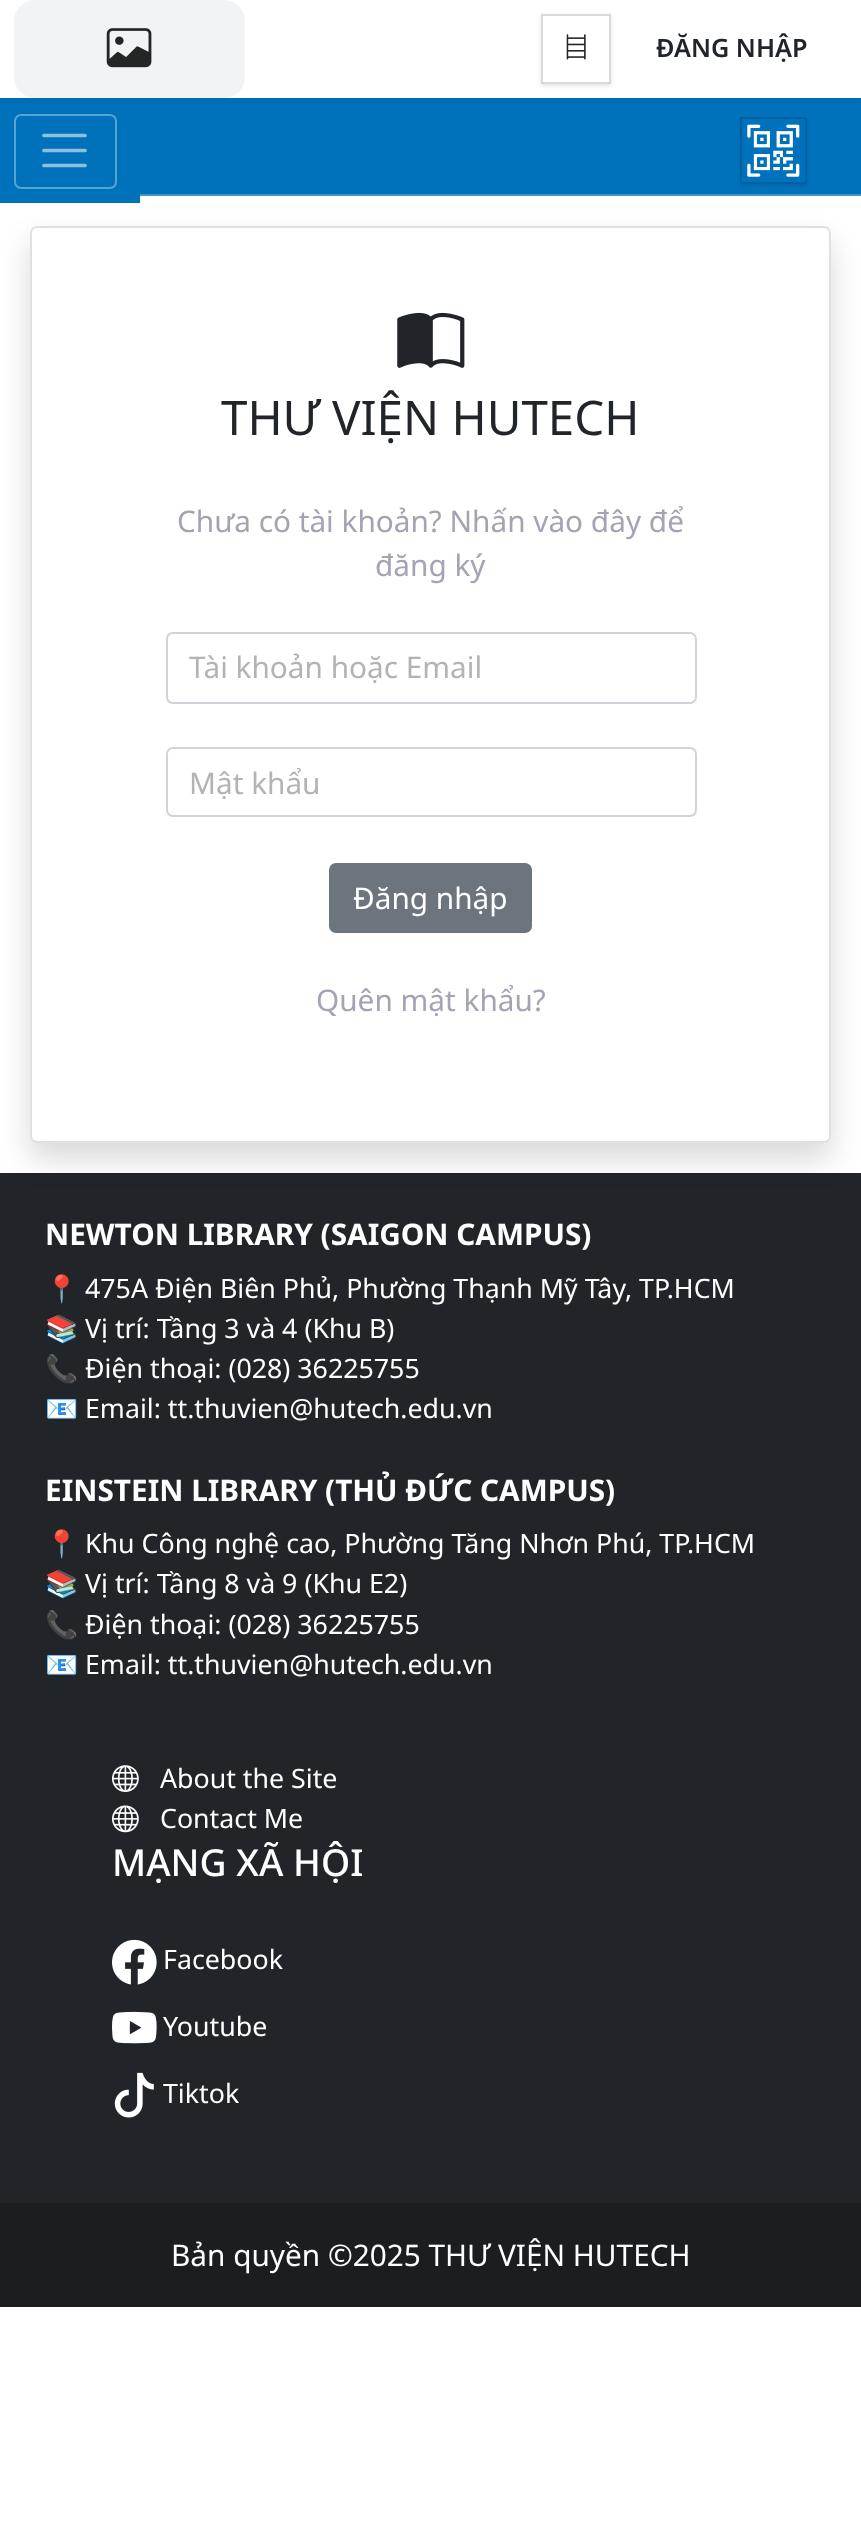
<svg xmlns="http://www.w3.org/2000/svg" width="861" height="2525">
<style>
.a{font:600 25.25px Noto Sans;fill:#212529}
.b{font:47.5px Noto Sans;fill:#212529}
.c{font:29.75px Noto Sans;fill:#a3a3b4}
.d{font:29.75px Noto Sans;fill:#b3b3b3}
.e{font:29.75px Noto Sans;fill:#fff}
.f{font:bold 29.75px Noto Sans;fill:#fff}
.g{font:26.75px Noto Color Emoji;fill:#fff}
.h{font:26.75px Noto Sans;fill:#fff}
.i{font:500 37.25px Noto Sans;fill:#fff}
</style>
<defs>
<clipPath id="clip1"><path d="M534 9h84v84h-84zm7 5h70v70h-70z" clip-rule="evenodd"/></clipPath>
<clipPath id="clip2"><path d="M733 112h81v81h-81zm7 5h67v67h-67z" clip-rule="evenodd"/></clipPath>
</defs>
<rect width="100%" height="100%" fill="#fff"/>
<path fill="#0072bc" d="M140 98h721v96H140z"/>
<path fill="#212529" d="M0 1173h861v1030H0z"/>
<rect fill="#00000026" filter="blur(15px)" x="30" y="242" width="801" height="917" rx="7"/>
<path fill="#0072bc" d="M0 98h140v105H0z"/>
<path fill="#00000012" filter="blur(3.5px)" d="M0 4h861v98H0z"/>
<path fill="#fff" d="M0 0h861v98H0z"/>
<rect fill="#f1f3f5" x="14" width="231" height="98" rx="21"/>
<image href="1.png" x="106" y="28" width="46" height="40"/>
<g clip-path="url(#clip1)">
<path fill="#0000001a" filter="blur(2px)" d="M541 16h70v70H541z"/>
</g>
<path fill="none" stroke="#d9d9d9" stroke-width="2" d="M542 15h68v68H542z"/>
<image href="2.png" x="566" y="34" width="20" height="26"/>
<path fill="#4095cd" d="M140 194h721v2H140z"/>
<rect fill="none" stroke="#59a3d3" stroke-width="2" x="15" y="115" width="101" height="73" rx="6"/>
<path fill="none" stroke="#8cc0e1" stroke-width="3.7" stroke-linecap="round" d="M44 135.5h41m-41 15h41m-41 15h41"/>
<g clip-path="url(#clip2)">
<path fill="#0000001a" filter="blur(2px)" d="M740 119h67v67H740z"/>
</g>
<path fill="none" stroke="#00000026" stroke-width="2" d="M741 118h65v65H741z"/>
<image href="3.png" x="747" y="124" width="53" height="53"/>
<rect fill="#fff" x="30" y="226" width="801" height="917" rx="7"/>
<rect fill="none" stroke="#0000001f" stroke-width="2" x="31" y="227" width="799" height="915" rx="6"/>
<image href="4.png" x="397" y="312" width="68" height="56"/>
<rect fill="none" stroke="#ced4da" stroke-width="2" x="167" y="633" width="529" height="70" rx="6"/>
<rect fill="none" stroke="#ced4da" stroke-width="2" x="167" y="748" width="529" height="68" rx="6"/>
<rect fill="#6c757d" stroke="#6c757d" stroke-width="2" x="330" y="864" width="201" height="68" rx="6"/>
<image href="5.png" x="112" y="1765" width="27" height="27"/>
<image href="6.png" x="112" y="1805" width="27" height="28"/>
<image href="7.png" x="112" y="1939" width="45" height="46"/>
<image href="8.png" x="112" y="2011" width="45" height="33"/>
<image href="9.png" x="114" y="2072" width="40" height="46"/>
<path fill="#1a1e21" d="M0 2203h861v104H0z"/>
<text class="a" x="656" y="57">ĐĂNG NHẬP</text>
<text class="b" x="221" y="435">THƯ VIỆN HUTECH</text>
<text class="c" x="177" y="532">Chưa có tài khoản? Nhấn vào đây để</text>
<text class="c" x="375" y="576">đăng ký</text>
<text class="d" x="189" y="678">Tài khoản hoặc Email</text>
<text class="d" x="189" y="794">Mật khẩu</text>
<text class="e" x="353" y="909">Đăng nhập</text>
<text class="c" x="316" y="1011">Quên mật khẩu?</text>
<text class="f" x="45" y="1245">NEWTON LIBRARY (SAIGON CAMPUS)</text>
<text class="g" x="45" y="1298">📍</text>
<text class="h" x="85" y="1298">475A Điện Biên Phủ, Phường Thạnh Mỹ Tây, TP.HCM</text>
<text class="g" x="45" y="1338">📚</text>
<text class="h" x="85" y="1338">Vị trí: Tầng 3 và 4 (Khu B)</text>
<text class="g" x="45" y="1378">📞</text>
<text class="h" x="85" y="1378">Điện thoại: (028) 36225755</text>
<text class="g" x="45" y="1418">📧</text>
<text class="h" x="85" y="1418">Email: tt.thuvien@hutech.edu.vn</text>
<text class="f" x="45" y="1501">EINSTEIN LIBRARY (THỦ ĐỨC CAMPUS)</text>
<text class="g" x="45" y="1553">📍</text>
<text class="h" x="85" y="1553">Khu Công nghệ cao, Phường Tăng Nhơn Phú, TP.HCM</text>
<text class="g" x="45" y="1593">📚</text>
<text class="h" x="85" y="1593">Vị trí: Tầng 8 và 9 (Khu E2)</text>
<text class="g" x="45" y="1634">📞</text>
<text class="h" x="85" y="1634">Điện thoại: (028) 36225755</text>
<text class="g" x="45" y="1674">📧</text>
<text class="h" x="85" y="1674">Email: tt.thuvien@hutech.edu.vn</text>
<text class="h" x="160" y="1788">About the Site</text>
<text class="h" x="160" y="1828">Contact Me</text>
<text class="i" x="112" y="1876">MẠNG XÃ HỘI</text>
<text class="h" x="163" y="1969">Facebook</text>
<text class="h" x="163" y="2036">Youtube</text>
<text class="h" x="163" y="2103">Tiktok</text>
<text class="e" x="171" y="2266">Bản quyền ©2025 THƯ VIỆN HUTECH</text>
</svg>
